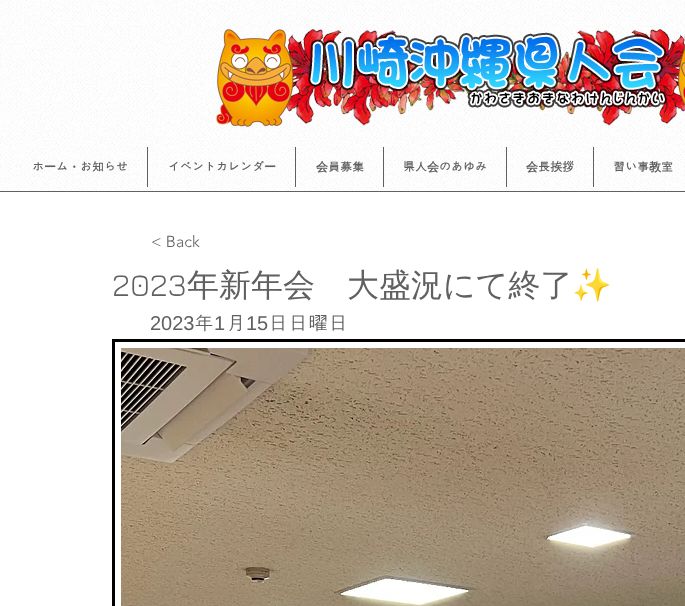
<svg xmlns="http://www.w3.org/2000/svg" width="685" height="606">
<style>*{font-kerning:none!important;font-variant-ligatures:none!important}</style>
<style>
.a{font:bold 12px Dotum;fill:#606060}
.b{font:bold 12px WenQuanYi Zen Hei;fill:#606060}
.c{font:300 16px 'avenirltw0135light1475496';fill:#606060}
.d{font:32px Jura;fill:#606060}
.e{font:500 32px WenQuanYi Zen Hei;fill:#606060}
.f{font:32px Noto Color Emoji;fill:#606060}
.g{font:20px Liberation Sans;fill:#606060}
.h{font:20px Dotum;fill:#606060}
</style>
<rect width="100%" height="100%" fill="#fff"/>
<image href="1.png" x="0" y="0" width="685" height="191"/>
<path fill="#606060" d="M0 191h685v1H0z"/>
<path fill="#ffffff99" d="M0 0h685v191H0z"/>
<image href="2.png" x="216" y="29" width="469" height="98"/>
<path fill="#606060" d="M147 147h1v40H147z"/>
<path fill="#606060" d="M295 147h1v40H295z"/>
<path fill="#606060" d="M383 147h1v40H383z"/>
<path fill="#606060" d="M506 147h1v40H506z"/>
<path fill="#606060" d="M593 147h1v40H593z"/>
<path fill="none" stroke="#000" stroke-width="3" d="M113.5 340.5h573v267H113.5z"/>
<image href="3.png" x="121" y="348" width="564" height="258"/>
<text class="a" x="32" y="171">ホ</text>
<text class="b" x="44" y="171">ー</text>
<text class="a" x="56" y="171">ム</text>
<text class="b" x="68" y="171">・</text>
<text class="a" x="80" y="171">お知らせ</text>
<text class="a" x="168" y="171">イベントカレンダ</text>
<text class="b" x="264" y="171">ー</text>
<text class="b" x="316" y="171">会</text>
<text class="a" x="328" y="171">員募集</text>
<text class="a" x="403" y="171">県人</text>
<text class="b" x="427" y="171">会</text>
<text class="a" x="439" y="171">のあゆみ</text>
<text class="b" x="526" y="171">会</text>
<text class="a" x="538" y="171">長挨拶</text>
<text class="a" x="613" y="171">習い事</text>
<text class="b" x="649" y="171">教</text>
<text class="a" x="661" y="171">室</text>
<text class="c" x="151" y="247">&lt; Back</text>
<text class="d" x="112" y="296">2023</text>
<text class="e" x="187" y="296">年新年会　大盛況にて終了</text>
<text class="f" x="572" y="296">✨</text>
<text class="g" x="150" y="330">2023</text>
<text class="h" x="194" y="330">年</text>
<text class="g" x="214" y="330">1</text>
<text class="h" x="226" y="330">月</text>
<text class="g" x="246" y="330">15</text>
<text class="h" x="268" y="330">日日曜日</text>
</svg>
